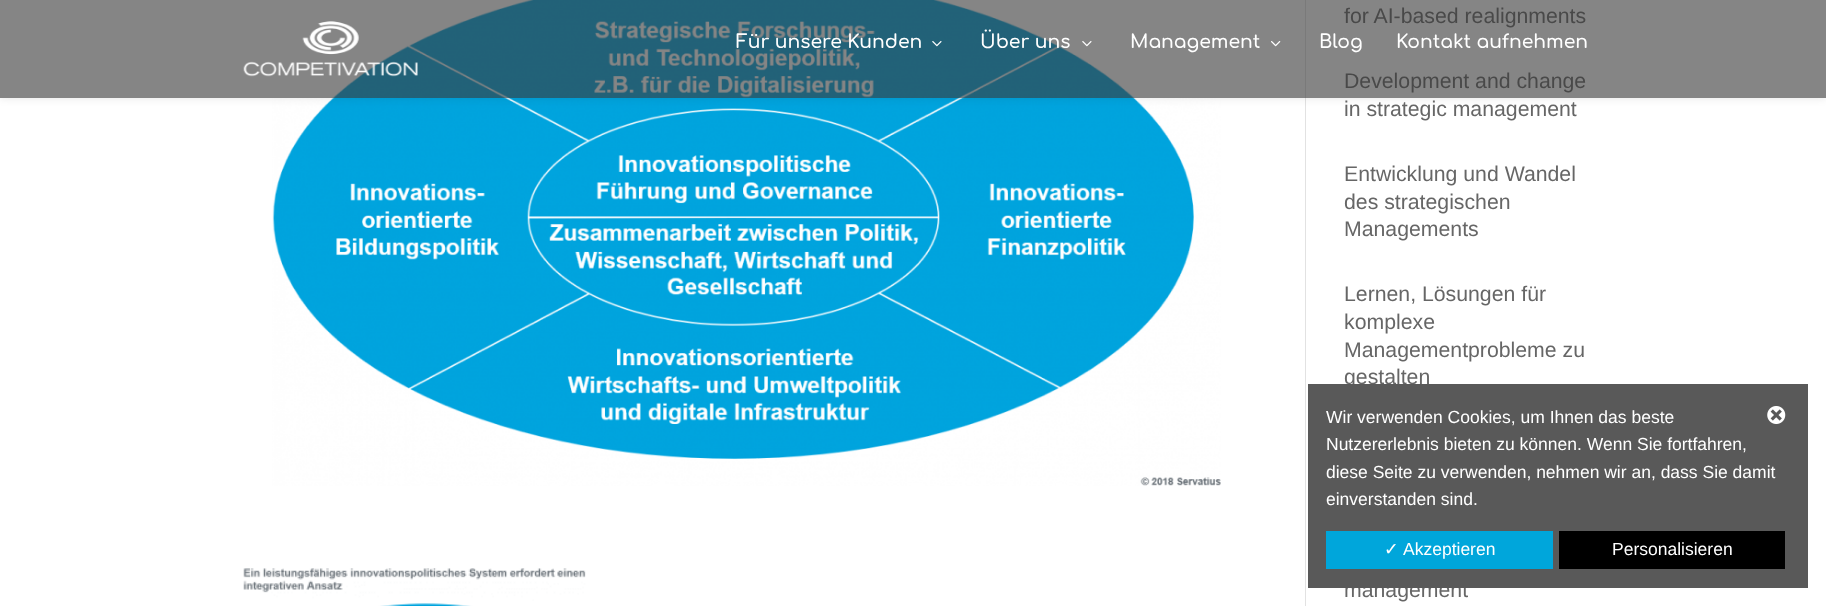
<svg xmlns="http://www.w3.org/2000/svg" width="1826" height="606">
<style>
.a{font:21.25px Liberation Sans;fill:#666}
.b{font:600 18.75px Comfortaa;fill:#fff}
.c{font:17.5px Liberation Sans;fill:#fff}
.d{font:17.5px DejaVu Sans;fill:#fff}
</style>
<defs>
<clipPath id="clip1"><path d="M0 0h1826v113h-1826zm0 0h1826v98h-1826z" clip-rule="evenodd"/></clipPath>
</defs>
<rect width="100%" height="100%" fill="#fff"/>
<path fill="#e2e2e2" d="M1305 0h1v606H1305z"/>
<image href="1.png" x="272" y="0" width="949" height="486"/>
<image href="2.png" x="243" y="568" width="343" height="38"/>
<g clip-path="url(#clip1)">
<path fill="#0000001a" filter="blur(4.5px)" d="M0 0h1826v98H0z"/>
</g>
<text class="a" x="1344" y="23">for AI-based realignments</text>
<text class="a" x="1344" y="88">Development and change</text>
<text class="a" x="1344" y="116">in strategic management</text>
<text class="a" x="1344" y="181">Entwicklung und Wandel</text>
<text class="a" x="1344" y="209">des strategischen</text>
<text class="a" x="1344" y="236">Managements</text>
<text class="a" x="1344" y="301">Lernen, Lösungen für</text>
<text class="a" x="1344" y="329">komplexe</text>
<text class="a" x="1344" y="357">Managementprobleme zu</text>
<text class="a" x="1344" y="384">gestalten</text>
<text class="a" x="1344" y="597">management</text>
<path fill="#3838389c" d="M0 0h1826v98H0z"/>
<image href="3.png" x="243" y="21" width="175" height="56"/>
<text class="b" x="736" y="48">Für unsere Kunden</text>
<image href="4.png" x="932" y="41" width="10" height="6"/>
<text class="b" x="980" y="48">Über uns</text>
<image href="5.png" x="1082" y="41" width="10" height="6"/>
<text class="b" x="1130" y="48">Management</text>
<image href="6.png" x="1271" y="41" width="10" height="6"/>
<text class="b" x="1319" y="48">Blog</text>
<text class="b" x="1396" y="48">Kontakt aufnehmen</text>
<path fill="#595959" d="M1308 384h500v204H1308z"/>
<text class="c" x="1326" y="423">Wir verwenden Cookies, um Ihnen das beste</text>
<text class="c" x="1326" y="450">Nutzererlebnis bieten zu können. Wenn Sie fortfahren,</text>
<text class="c" x="1326" y="478">diese Seite zu verwenden, nehmen wir an, dass Sie damit</text>
<text class="c" x="1326" y="505">einverstanden sind.</text>
<image href="7.png" x="1767" y="406" width="19" height="18"/>
<path fill="#00a6db" d="M1326 531h227v38H1326z"/>
<text class="d" x="1384" y="555">✓</text>
<text class="c" x="1403" y="555">Akzeptieren</text>
<path fill="#000" d="M1559 531h226v38H1559z"/>
<text class="c" x="1612" y="555">Personalisieren</text>
</svg>
